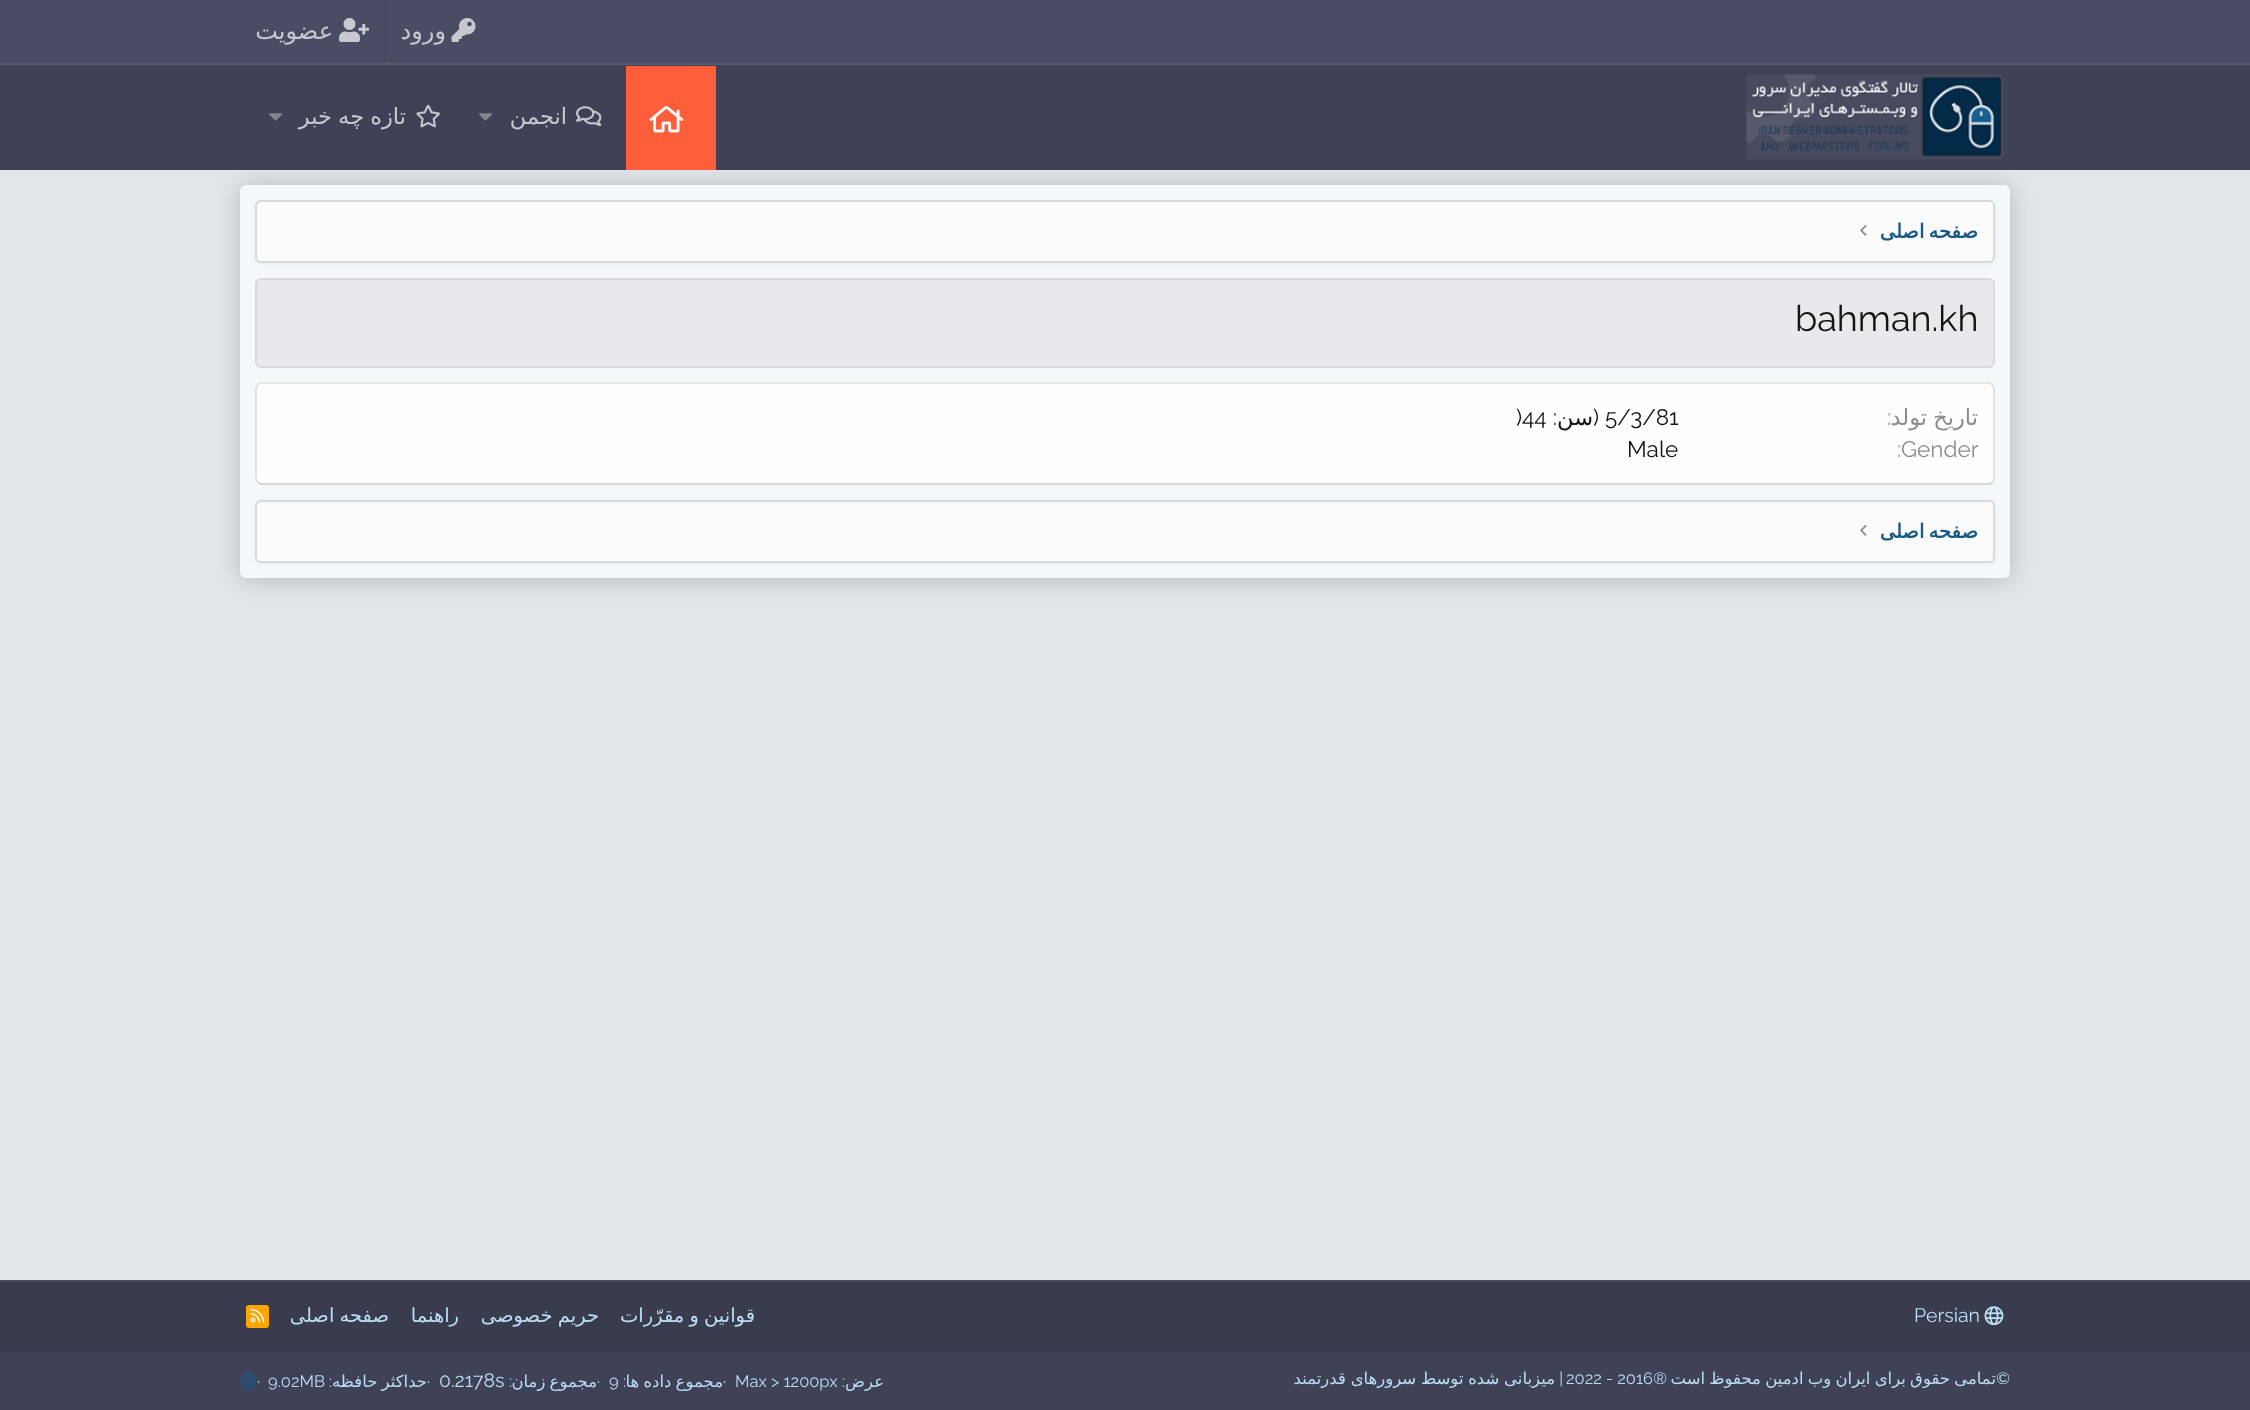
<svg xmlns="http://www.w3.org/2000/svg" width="2250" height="1410">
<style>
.a{font:24px DejaVu Sans;direction:rtl;fill:#c8c9d0}
.b{font:22.5px DejaVu Sans;direction:rtl;fill:#c8c9d0}
.c{font:bold 19.5px DejaVu Sans;direction:rtl;fill:#185886}
.d{font:36px Raleway;fill:#141414}
.e{font:22.5px DejaVu Sans;direction:rtl;fill:#8c8c8c}
.f{font:22.5px Raleway;fill:#8c8c8c}
.g{font:22.5px Raleway;fill:#141414}
.h{font:22.5px Raleway;direction:rtl;fill:#141414}
.i{font:22.5px DejaVu Sans;direction:rtl;fill:#141414}
.j{font:19.5px Raleway;fill:#bcdef5}
.k{font:19.5px DejaVu Sans;direction:rtl;fill:#bcdef5}
.l{font:16.5px DejaVu Sans;direction:rtl;fill:#bcdef5}
.m{font:16.5px Raleway;direction:rtl;fill:#bcdef5}
.n{font:16.5px Raleway;fill:#bcdef5}
</style>
<rect width="100%" height="100%" fill="#e2e6e9"/>
<path fill="#494c62" d="M0 0h2250v63H0z"/>
<path fill="#595c70" d="M0 63h2250v2H0z"/>
<image href="1.png" x="451" y="18" width="25" height="24"/>
<path fill="#46495e" d="M384 0h2v63H384z"/>
<image href="2.png" x="339" y="18" width="30" height="24"/>
<rect fill="#00000033" filter="blur(12px)" x="240" y="186" width="1770" height="393" rx="6"/>
<path fill="#3f4257" d="M0 65h2250v105H0z"/>
<image href="3.png" x="1746" y="74" width="258" height="86"/>
<path fill="#ff5e3a" d="M626 66h90v104H626z"/>
<image href="4.png" x="649" y="106" width="35" height="27"/>
<image href="5.png" x="576" y="106" width="26" height="20"/>
<image href="6.png" x="479" y="113" width="13" height="8"/>
<image href="7.png" x="416" y="104" width="24" height="24"/>
<image href="6.png" x="269" y="113" width="13" height="8"/>
<rect fill="#f5f8fa" x="240" y="185" width="1770" height="393" rx="6"/>
<rect fill="#0000000d" filter="blur(2px)" x="255" y="201" width="1740" height="63" rx="6"/>
<rect fill="#fbfbfb" stroke="#d7d9df" stroke-width="2" x="256" y="201" width="1738" height="61" rx="5"/>
<image href="8.png" x="1860" y="225" width="7" height="11"/>
<rect fill="#e8e9ed" x="255" y="278" width="1740" height="90" rx="6"/>
<path fill="#f8f8fa" d="M261 280h1728c2 0 5 3 5 5v-1c0-3-2-5-5-5h-1727c-2 0-4 1-5 3c1-1 3-2 4-2z"/>
<rect fill="none" stroke="#d7d9df" stroke-width="2" x="256" y="279" width="1738" height="88" rx="5"/>
<rect fill="#fefefe" x="255" y="383" width="1740" height="102" rx="6"/>
<path fill="none" stroke="#dfdfdf" stroke-width="1.5" d="M257.5 385c1-1 2-2 3.5-2h1728c1.5 0 2.5 1 3.5 2"/>
<path fill="none" stroke="#d8d8d8" stroke-width="1.5" d="M1992.5 385l1.5 3v91l-1.5 3"/>
<path fill="none" stroke="#cbcbcb" stroke-width="1.5" d="M1992.5 482c-1 1-2 2-3.5 2h-1728c-1.5 0-2.5-1-3.5-2"/>
<path fill="none" stroke="#d8d8d8" stroke-width="1.5" d="M257.5 482l-1.5-3v-91l1.5-3"/>
<rect fill="#0000000d" filter="blur(2px)" x="255" y="501" width="1740" height="63" rx="6"/>
<rect fill="#fbfbfb" stroke="#d7d9df" stroke-width="2" x="256" y="501" width="1738" height="61" rx="5"/>
<image href="8.png" x="1860" y="525" width="7" height="11"/>
<path fill="#393b4e" d="M0 1282h2250v71H0z"/>
<path fill="#4b4d5e" d="M0 1280h2250v2H0z"/>
<image href="9.png" x="1984" y="1306" width="20" height="20"/>
<rect fill="#ffa500" x="246" y="1305" width="23" height="23" rx="3"/>
<image href="10.png" x="250" y="1308" width="15" height="15"/>
<path fill="#3f4257" d="M0 1353h2250v57H0z"/>
<image href="11.png" x="240" y="1373" width="16" height="17"/>
<text class="a" x="446" y="39">ورود</text>
<text class="a" x="333" y="39">عضویت</text>
<text class="b" x="567" y="124">انجمن</text>
<text class="b" x="406" y="124" word-spacing="-1">تازه چه خبر</text>
<text class="c" x="1978" y="238" word-spacing="-2">صفحه اصلی</text>
<text class="d" x="1795" y="331">bahman.kh</text>
<text class="e" x="1978" y="425" word-spacing="-1">تاریخ تولد</text>
<text class="f" x="1887" y="425">:</text>
<text class="g" x="1605" y="425">5/3/81</text>
<text class="h" x="1599" y="425">(</text>
<text class="i" x="1593" y="425">سن</text>
<text class="h" x="1557" y="425">:</text>
<text class="g" x="1516" y="425">)44</text>
<text class="f" x="1901" y="457">Gender</text>
<text class="f" x="1897" y="457">:</text>
<text class="g" x="1627" y="457">Male</text>
<text class="c" x="1978" y="538" word-spacing="-2">صفحه اصلی</text>
<text class="j" x="1914" y="1322">Persian</text>
<text class="k" x="755" y="1322" word-spacing="-1">قوانین و مقرّرات</text>
<text class="k" x="599" y="1322" word-spacing="-1">حریم خصوصی</text>
<text class="k" x="459" y="1322">راهنما</text>
<text class="k" x="389" y="1322" word-spacing="-1">صفحه اصلی</text>
<text class="l" x="1996" y="1384" word-spacing="-1">تمامی حقوق برای ایران وب ادمین محفوظ است</text>
<text class="m" x="2010" y="1384">©</text>
<text class="m" x="1667" y="1384">®</text>
<text class="n" x="1566" y="1384">2022 - 2016</text>
<text class="m" x="1563" y="1384">|</text>
<text class="l" x="1555" y="1384" word-spacing="-0.5">میزبانی شده توسط سرورهای قدرتمند</text>
<text class="l" x="884" y="1387">عرض</text>
<text class="n" x="842" y="1387">:</text>
<text class="n" x="735" y="1387">Max &gt; 1200px</text>
<text class="n" x="623" y="1387">:</text>
<text class="n" x="609" y="1387">9</text>
<text class="n" x="597" y="1387">·</text>
<text class="l" x="597" y="1387" word-spacing="-1">مجموع زمان</text>
<text class="n" x="509" y="1387">:</text>
<text class="j" x="439" y="1387">0.2178s</text>
<text class="n" x="427" y="1387">·</text>
<text class="l" x="427" y="1387" word-spacing="-1">حداکثر حافظه</text>
<text class="n" x="329" y="1387">:</text>
<text class="n" x="268" y="1387">9.02MB</text>
<text class="n" x="257" y="1387">·</text>
<text class="n" x="723" y="1387">·</text>
<text class="l" x="723" y="1387" word-spacing="-1">مجموع داده ها</text>
</svg>
